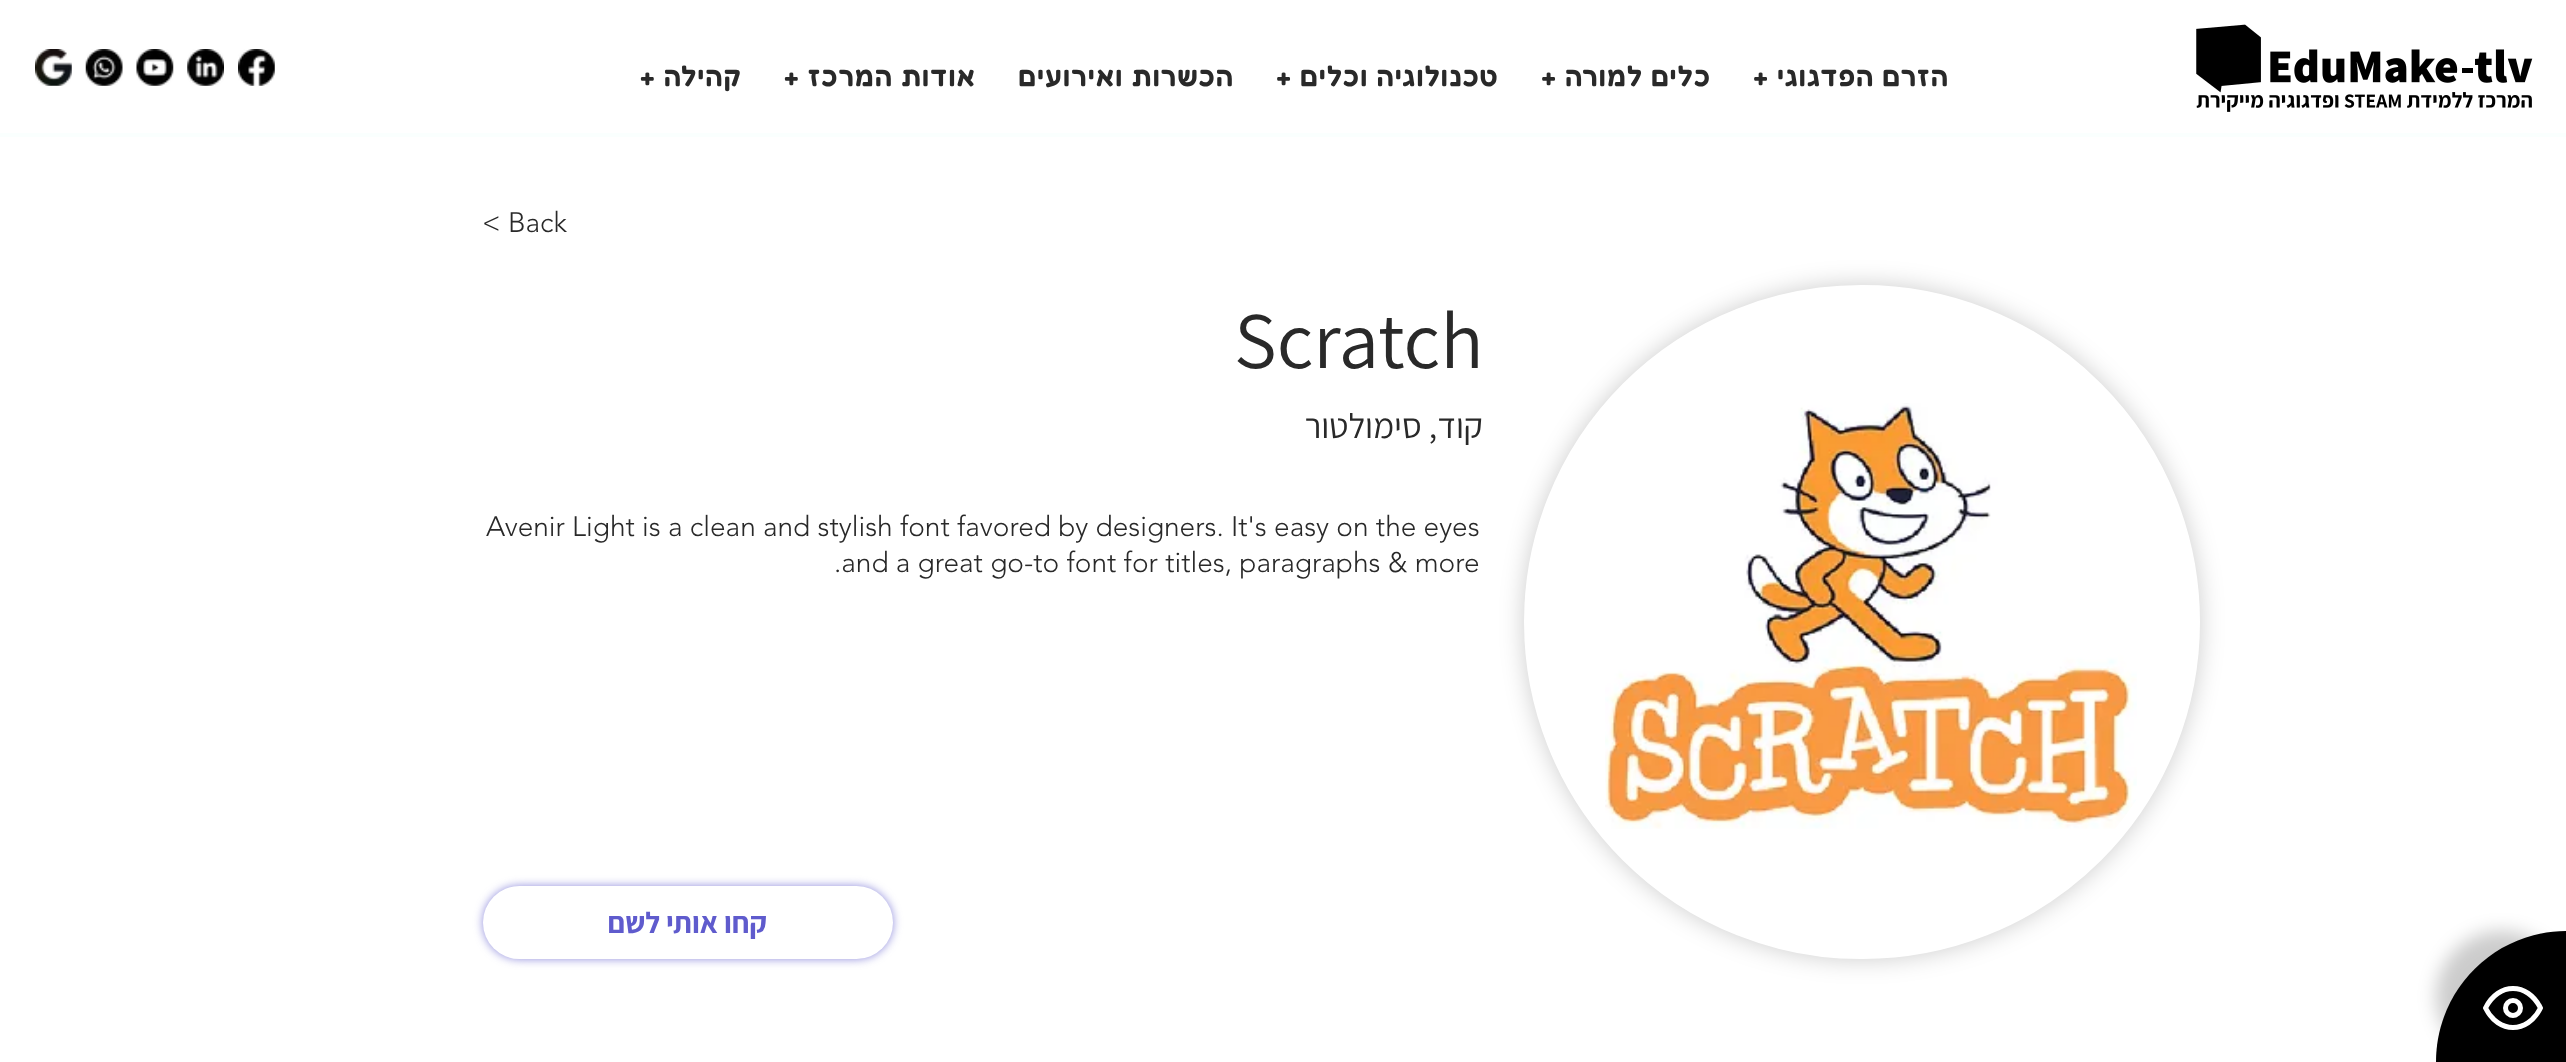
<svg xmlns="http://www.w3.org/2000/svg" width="2566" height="1062">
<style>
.a{font:600 28px Fredoka;letter-spacing:1.4px;direction:rtl;fill:#292929}
.b{font:300 28px 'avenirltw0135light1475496';fill:#292929}
.c{font:80.5px Assistant;fill:#292929}
.d{font:35px Assistant;direction:rtl;fill:#292929}
.e{font:bold 29.75px Assistant;direction:rtl;fill:#5f5bcd}
</style>
<rect width="100%" height="100%" fill="#fff"/>
<image href="1.png" x="35" y="49" width="37" height="37"/>
<image href="2.png" x="85" y="49" width="38" height="37"/>
<image href="3.png" x="136" y="49" width="38" height="37"/>
<image href="4.png" x="187" y="49" width="37" height="37"/>
<image href="5.png" x="238" y="49" width="37" height="37"/>
<image href="6.png" x="2196" y="24" width="337" height="88"/>
<path fill="#fafffe" d="M0 133h2566v4H0z"/>
<rect fill="#5f5bcdb3" filter="blur(5px)" x="483" y="886" width="410" height="73" rx="36.5"/>
<rect fill="#fff" x="483" y="886" width="410" height="73" rx="36.5"/>
<rect fill="#00000033" filter="blur(12px)" x="1524" y="285" width="676" height="674" rx="337"/>
<rect fill="#fff" stroke="#fff" stroke-width="11" x="1529.5" y="290.5" width="665" height="663" rx="331.5"/>
<image href="7.png" x="1605" y="403" width="532" height="426"/>
<rect fill="#00000033" filter="blur(9px)" x="2436" y="931" width="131" height="131" rx="131"/>
<path fill="#000" d="M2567 931v131h-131c0-72.5 58.5-131 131-131z"/>
<path fill="none" stroke="#fff" stroke-width="5" stroke-linecap="round" stroke-linejoin="round" d="M2485.5 1008c13-26 42-26 55 0c-13 26-42 26-55 0z"/>
<circle fill="none" stroke="#fff" stroke-width="5" cx="2513" cy="1008" r="7.5"/>
<text class="a" x="742" y="86">קהילה +</text>
<text class="a" x="976" y="86">אודות המרכז +</text>
<text class="a" x="1234" y="86">הכשרות ואירועים</text>
<text class="a" x="1499" y="86">טכנולוגיה וכלים +</text>
<text class="a" x="1711" y="86">כלים למורה +</text>
<text class="a" x="1949" y="86">הזרם הפדגוגי +</text>
<text class="b" x="482" y="232">&lt; Back</text>
<text class="c" x="1234" y="368">Scratch</text>
<text class="d" x="1483" y="438">קוד, סימולטור</text>
<text class="b" x="486" y="536">Avenir Light is a clean and stylish font favored by designers. It's easy on the eyes</text>
<text class="b" x="834" y="572">.and a great go-to font for titles, paragraphs &amp; more</text>
<text class="e" x="767" y="933">קחו אותי לשם</text>
</svg>
